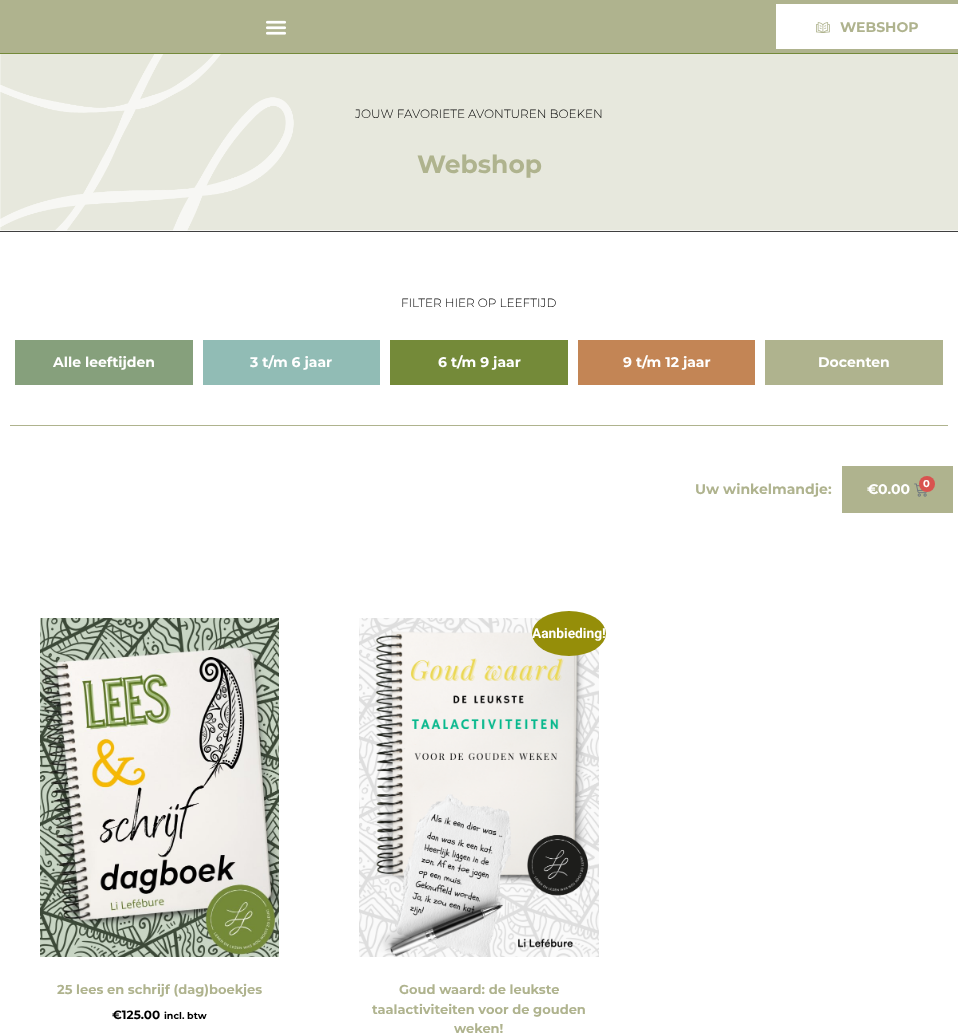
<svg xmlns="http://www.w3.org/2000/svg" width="958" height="1035">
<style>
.a{font:bold 14px Montserrat;fill:#afb38e}
.b{font:300 12px Montserrat;fill:#000}
.c{font:bold 25px Montserrat;fill:#afb38e}
.d{font:bold 14px Montserrat;fill:#fff}
.e{font:bold 10px Montserrat;fill:#fff}
.f{font:bold 13px Montserrat;fill:#afb38e}
.g{font:bold 12px Montserrat;fill:#000}
.h{font:bold 9.5px Montserrat;fill:#000}
.i{font:bold 13.75px Roboto;fill:#fff}
</style>
<rect width="100%" height="100%" fill="#fff"/>
<path fill="#afb38e" d="M0 0h958v53H0z"/>
<image href="1.png" x="266" y="20" width="20" height="15"/>
<path fill="#fff" d="M776 4h182v45H776z"/>
<image href="2.png" x="816" y="22" width="14" height="11"/>
<path fill="#748a39" d="M0 53h958v1H0z"/>
<image href="3.png" x="0" y="54" width="958" height="178"/>
<path fill="#86a07c" d="M15 340h178v45H15z"/>
<path fill="#91bcb5" d="M203 340h177v45H203z"/>
<path fill="#748a39" d="M390 340h178v45H390z"/>
<path fill="#c38555" d="M578 340h177v45H578z"/>
<path fill="#afb38e" d="M765 340h178v45H765z"/>
<path fill="#afb38e" d="M10 425h938v1H10z"/>
<path fill="#afb38e" d="M842 466h111v47H842z"/>
<image href="4.png" x="914" y="483" width="13" height="14"/>
<circle fill="#d9534f" cx="927" cy="484" r="8"/>
<image href="5.png" x="40" y="618" width="239" height="339"/>
<image href="6.png" x="359" y="618" width="240" height="339"/>
<ellipse fill="#958e09" cx="569" cy="633.5" rx="37" ry="22.5"/>
<text class="a" x="840" y="32">WEBSHOP</text>
<text class="b" x="355" y="118">JOUW FAVORIETE AVONTUREN BOEKEN</text>
<text class="c" x="417" y="173">Webshop</text>
<text class="b" x="401" y="307">FILTER HIER OP LEEFTIJD</text>
<text class="d" x="53" y="367">Alle leeftijden</text>
<text class="d" x="250" y="367">3 t/m 6 jaar</text>
<text class="d" x="438" y="367">6 t/m 9 jaar</text>
<text class="d" x="623" y="367">9 t/m 12 jaar</text>
<text class="d" x="818" y="367">Docenten</text>
<text class="a" x="695" y="494">Uw winkelmandje:</text>
<text class="d" x="867" y="494">€0.00</text>
<text class="e" x="923" y="487">0</text>
<text class="f" x="57" y="994">25 lees en schrijf (dag)boekjes</text>
<text class="g" x="112" y="1019">€125.00</text>
<text class="h" x="164" y="1019">incl. btw</text>
<text class="i" x="532" y="638">Aanbieding!</text>
<text class="f" x="399" y="994">Goud waard: de leukste</text>
<text class="f" x="372" y="1014">taalactiviteiten voor de gouden</text>
<text class="f" x="454" y="1033">weken!</text>
</svg>
